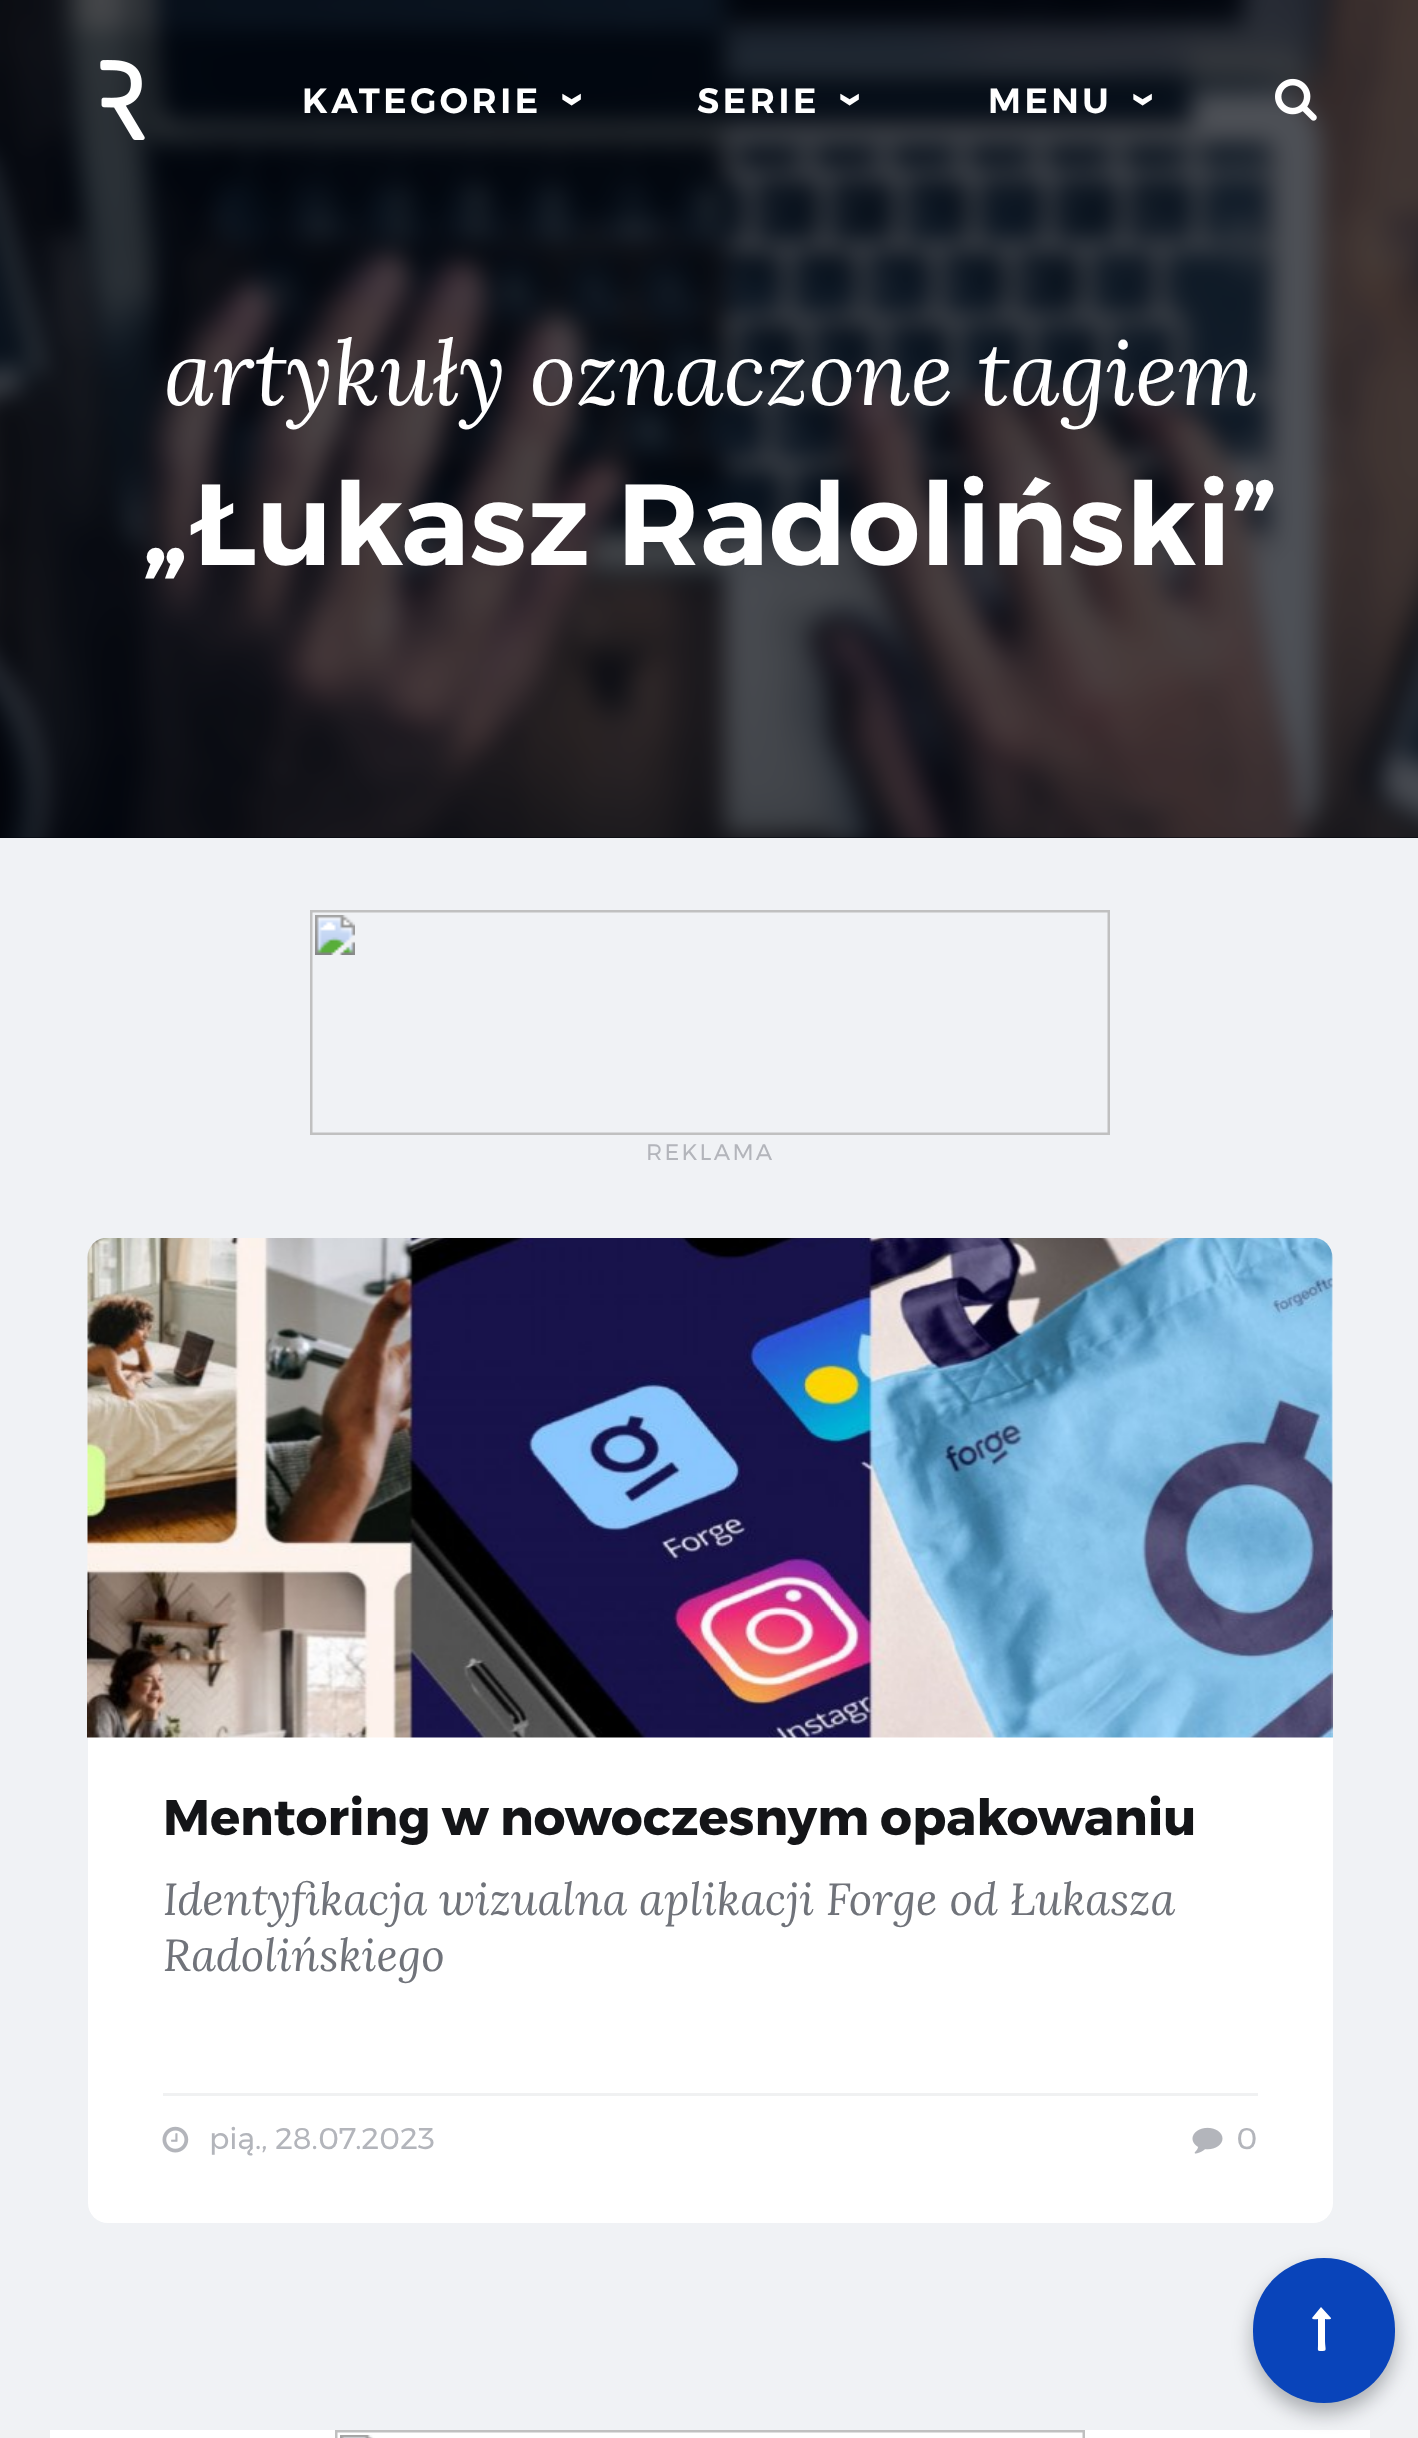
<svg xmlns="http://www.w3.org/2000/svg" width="1418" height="2438">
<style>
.a{font:600 35px Montserrat;letter-spacing:3.5px;fill:#fff}
.b{font:500 52px Montserrat;letter-spacing:3.5px;fill:#fff}
.c{font:italic 90px Lora;fill:#fff}
.d{font:600 115px Montserrat;fill:#fff}
.e{font:22.5px Montserrat;letter-spacing:2.25px;fill:#b3b5bb}
.f{font:bold 50px Montserrat;fill:#141518}
.g{font:italic 45px Lora;fill:#70737a}
.h{font:30px Montserrat;fill:#b3b5bb}
</style>
<rect width="100%" height="100%" fill="#01050d"/>
<image href="3.png" x="0" y="0" width="1418" height="838"/>
<image href="1.png" x="100" y="60" width="45" height="80"/>
<image href="2.png" x="1275" y="78" width="42" height="43"/>
<path fill="#f0f2f5" d="M0 838h1418v1592H0z"/>
<image href="4.png" x="310" y="910" width="800" height="225"/>
<rect fill="#fff" x="88" y="1238" width="1245" height="985" rx="20"/>
<image href="5.png" x="87" y="1238" width="1246" height="500"/>
<path fill="#f0f1f2" d="M163 2093h1095v3H163z"/>
<image href="6.png" x="162" y="2126" width="27" height="27"/>
<image href="7.png" x="1192" y="2127" width="31" height="27"/>
<path fill="#f0f1f2" d="M0 2430h1418v8H0z"/>
<image href="8.png" x="50" y="2430" width="1320" height="8"/>
<rect fill="#01050d4d" filter="blur(10px)" x="1253" y="2268" width="142" height="145" rx="71"/>
<rect fill="#0944ba" x="1253" y="2258" width="142" height="145" rx="71"/>
<path fill="#fff" d="M1321 2307l10 11c1 2-6 1-6 1v21c0 10 3 11-4 11c-4 0-3-1-3-6v-26c0 0-6 1-6-1z"/>
<text class="a" x="302" y="113">KATEGORIE</text>
<text class="b" x="558" y="92" transform="rotate(90 558 92)">›</text>
<text class="a" x="697" y="113">SERIE</text>
<text class="b" x="836" y="92" transform="rotate(90 836 92)">›</text>
<text class="a" x="988" y="113">MENU</text>
<text class="b" x="1129" y="92" transform="rotate(90 1129 92)">›</text>
<text class="c" x="164" y="405">artykuły oznaczone tagiem</text>
<text class="d" x="142" y="565">„Łukasz Radoliński”</text>
<text class="e" x="646" y="1160">REKLAMA</text>
<text class="f" x="163" y="1835">Mentoring w nowoczesnym opakowaniu</text>
<text class="g" x="163" y="1915">Identyfikacja wizualna aplikacji Forge od Łukasza</text>
<text class="g" x="163" y="1971">Radolińskiego</text>
<text class="h" x="209" y="2149">pią., 28.07.2023</text>
<text class="h" x="1236" y="2149">0</text>
</svg>
